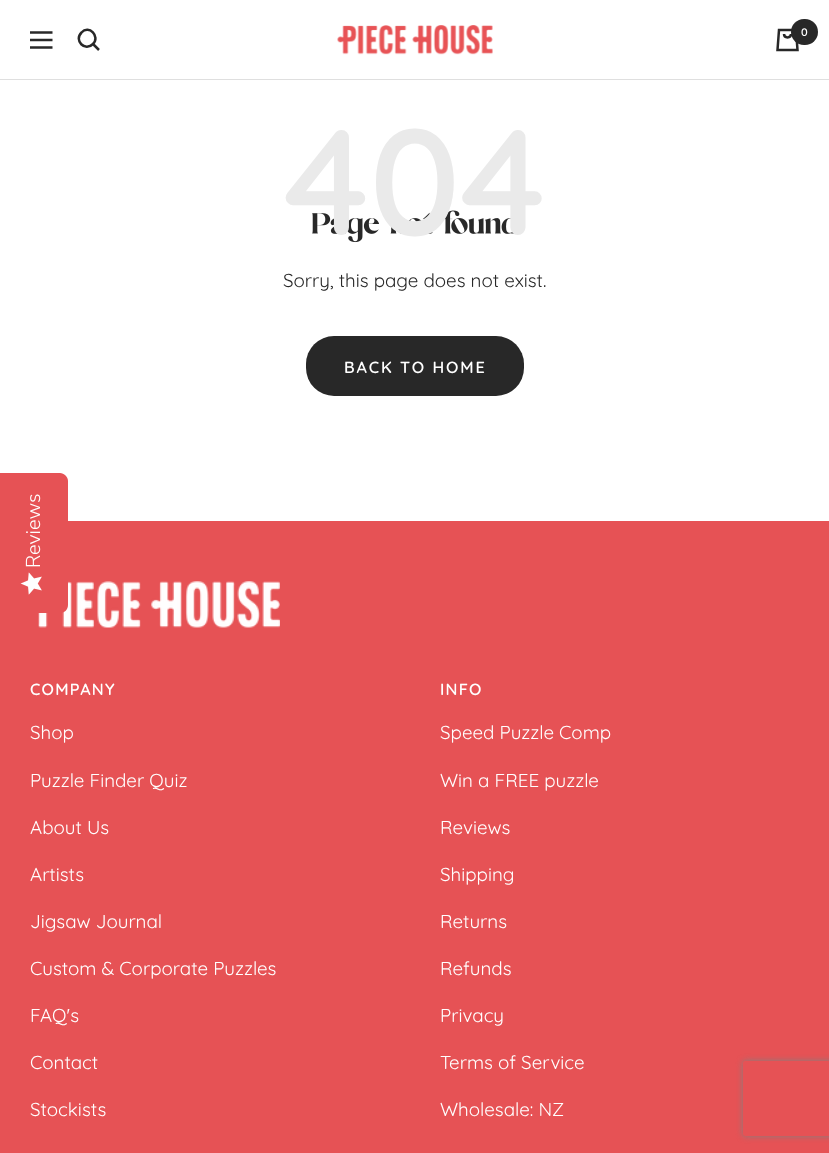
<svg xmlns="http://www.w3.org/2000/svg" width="829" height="1153">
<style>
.a{font:600 11px Quicksand;fill:#fff}
.b{font:600 150px Quicksand;fill:#eaeaea}
.c{font:18.75px Quicksand;fill:#282828}
.d{font:600 16.25px Quicksand;letter-spacing:1.9px;fill:#fff}
.e{font:300 20px Nunito Sans;fill:#fff}
.f{font:600 16.25px Quicksand;letter-spacing:1.25px;fill:#fff}
.g{font:18.75px Quicksand;fill:#fff}
</style>
<defs>
<clipPath id="clip1"><path d="M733 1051h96v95h-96zm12.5 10h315c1.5 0 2.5 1 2.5 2.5v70c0 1.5-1 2.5-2.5 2.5h-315c-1.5 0-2.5-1-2.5-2.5v-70c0-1.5 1-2.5 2.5-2.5z" clip-rule="evenodd"/></clipPath>
</defs>
<rect width="100%" height="100%" fill="#fff"/>
<path fill="#dfdfdf" d="M0 79h829v1H0z"/>
<path fill="none" stroke="#282828" stroke-width="2.5" d="M30 32.5h22.5m-22.5 15h22.5zm0-7.5h22.5z"/>
<path fill="none" stroke="#282828" stroke-width="2.5" d="M93 44c7.5-7.5-4-19.5-11.5-11.5c-8 8 3.5 19.5 11.5 11.5zm0 0l6 6"/>
<image href="1.png" x="337" y="25" width="156" height="30"/>
<path fill="none" stroke="#282828" stroke-width="2.5" d="M779 30h17l1.5 20h-20zm5 4c0 4.5 7 4.5 7 0"/>
<rect fill="#282828" x="791" y="19" width="27" height="26" rx="13"/>
<image href="2.png" x="312" y="210" width="206" height="33"/>
<rect fill="#282828" x="306" y="336" width="218" height="60" rx="28"/>
<path fill="#e65255" d="M0 521h829v632H0z"/>
<image href="4.png" x="38" y="581" width="242" height="47"/>
<path fill="#e65255" d="M0 613v-140h60c4 0 8 4 8 8v124c0 5-4 8-8 8z"/>
<image href="3.png" x="20" y="572" width="22" height="23"/>
<g clip-path="url(#clip1)">
<rect fill="#808080" filter="blur(3px)" x="743" y="1061" width="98" height="75" rx="2.5"/>
</g>
<text class="a" x="801" y="36">0</text>
<text class="b" x="284" y="235">404</text>
<text class="c" x="283" y="287">Sorry, this page does not exist.</text>
<text class="d" x="344" y="373">BACK TO HOME</text>
<text class="e" x="40" y="568" transform="rotate(-90 40 568)">Reviews</text>
<text class="f" x="30" y="695">COMPANY</text>
<text class="g" x="30" y="739">Shop</text>
<text class="g" x="30" y="787">Puzzle Finder Quiz</text>
<text class="g" x="30" y="834">About Us</text>
<text class="g" x="30" y="881">Artists</text>
<text class="g" x="30" y="928">Jigsaw Journal</text>
<text class="g" x="30" y="975">Custom &amp; Corporate Puzzles</text>
<text class="g" x="30" y="1022">FAQ's</text>
<text class="g" x="30" y="1069">Contact</text>
<text class="g" x="30" y="1116">Stockists</text>
<text class="f" x="440" y="695">INFO</text>
<text class="g" x="440" y="739">Speed Puzzle Comp</text>
<text class="g" x="440" y="787">Win a FREE puzzle</text>
<text class="g" x="440" y="834">Reviews</text>
<text class="g" x="440" y="881">Shipping</text>
<text class="g" x="440" y="928">Returns</text>
<text class="g" x="440" y="975">Refunds</text>
<text class="g" x="440" y="1022">Privacy</text>
<text class="g" x="440" y="1069">Terms of Service</text>
<text class="g" x="440" y="1116">Wholesale: NZ</text>
</svg>
